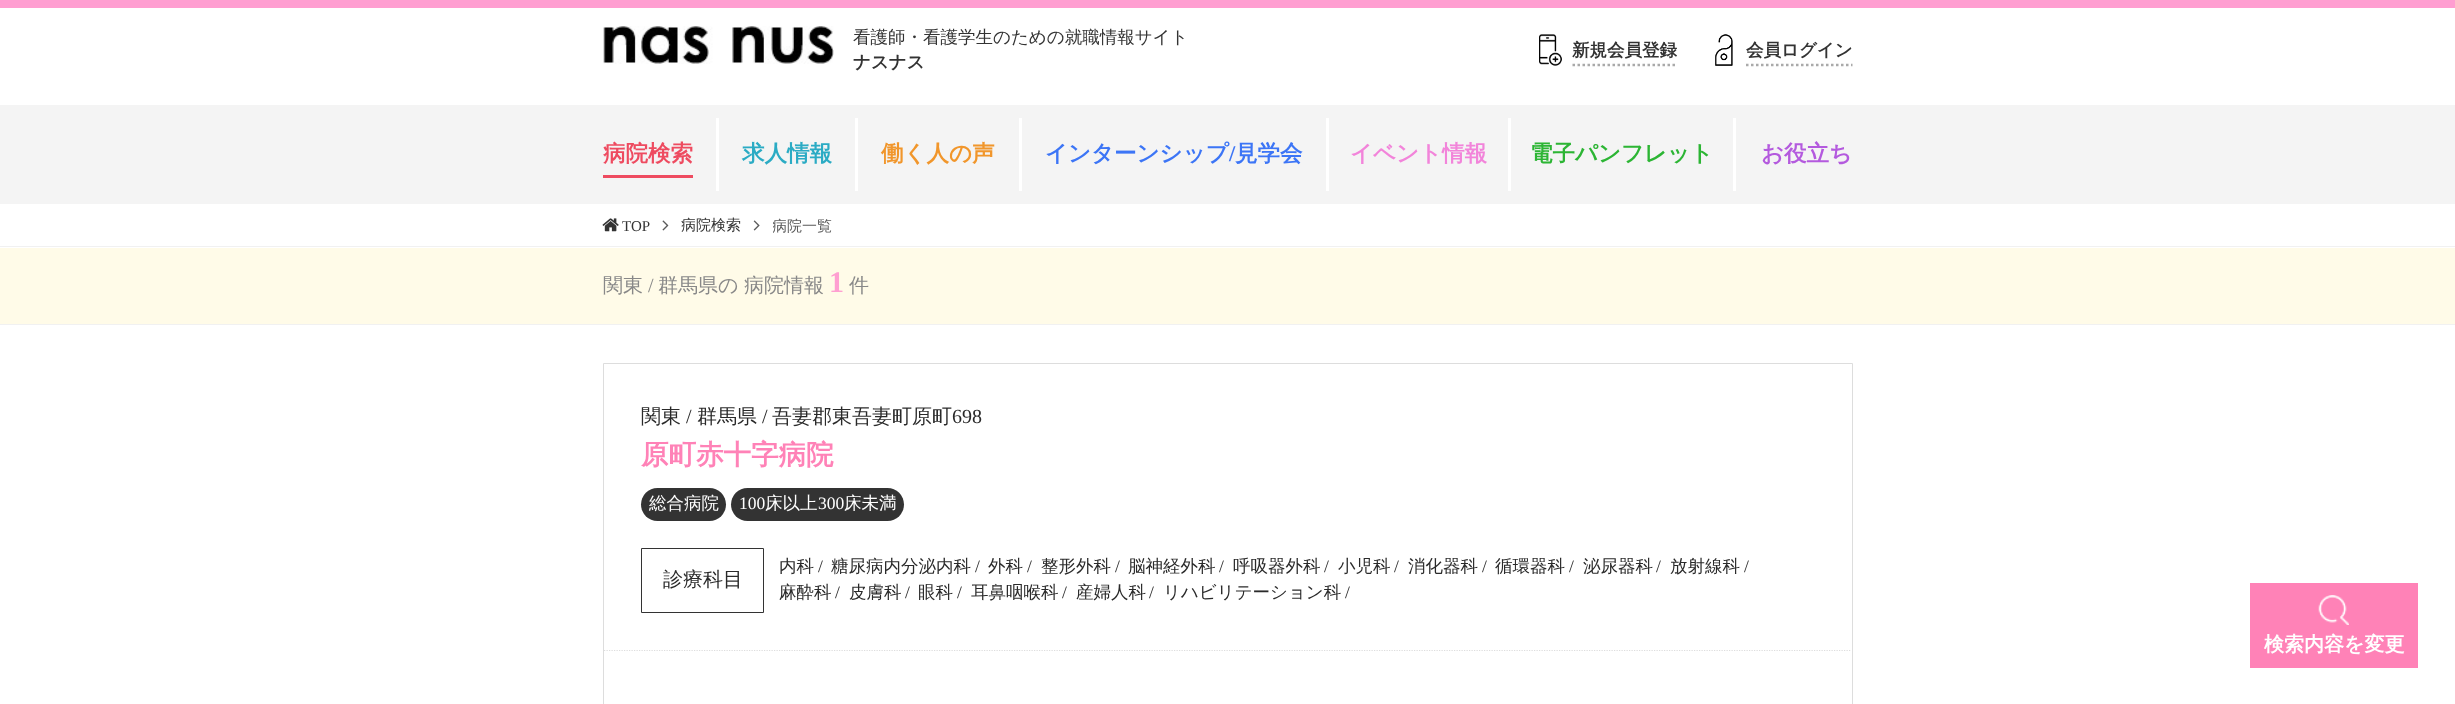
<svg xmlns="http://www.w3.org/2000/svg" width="2455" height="704">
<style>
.a{font:500 17.5px WenQuanYi Zen Hei;fill:#333}
.b{font:bold 17.5px WenQuanYi Zen Hei;fill:#333}
.c{font:bold 22.5px WenQuanYi Zen Hei;fill:#ee4b60}
.d{font:bold 22.5px WenQuanYi Zen Hei;fill:#2babc4}
.e{font:bold 22.5px WenQuanYi Zen Hei;fill:#f1962b}
.f{font:bold 22.5px WenQuanYi Zen Hei;fill:#3c75f6}
.g{font:bold 22.5px Liberation Serif;fill:#3c75f6}
.h{font:bold 22.5px WenQuanYi Zen Hei;fill:#f284da}
.i{font:bold 22.5px WenQuanYi Zen Hei;fill:#2cb534}
.j{font:bold 22.5px WenQuanYi Zen Hei;fill:#b45ade}
.k{font:15px Liberation Serif;fill:#333}
.l{font:500 15px WenQuanYi Zen Hei;fill:#333}
.m{font:500 15px WenQuanYi Zen Hei;fill:#5a5a5a}
.n{font:500 20px WenQuanYi Zen Hei;fill:#888}
.o{font:20px Liberation Serif;fill:#888}
.p{font:bold 30px Liberation Serif;fill:#ff9fd1}
.q{font:500 20px WenQuanYi Zen Hei;fill:#2a2a2a}
.r{font:20px Liberation Serif;fill:#2a2a2a}
.s{font:bold 27.5px WenQuanYi Zen Hei;fill:#ff82b7}
.t{font:500 17.5px WenQuanYi Zen Hei;fill:#fff}
.u{font:17.5px Liberation Serif;fill:#fff}
.v{font:500 17.5px WenQuanYi Zen Hei;fill:#2a2a2a}
.w{font:17.5px Liberation Serif;fill:#2a2a2a}
.x{font:bold 20px WenQuanYi Zen Hei;fill:#fff}
</style>
<defs>
<clipPath id="clip1"><path d="M773 206h60v40H773z"/></clipPath>
</defs>
<rect width="100%" height="100%" fill="#fff"/>
<path fill="#ff9ed1" d="M0 0h2455v8H0z"/>
<image href="1.png" x="603" y="26" width="231" height="38"/>
<image href="2.png" x="1539" y="34" width="23" height="32"/>
<path fill="none" stroke="#aaa" stroke-width="2.5" stroke-dasharray="2.5 2.5" d="M1572.5 65h105"/>
<image href="3.png" x="1715" y="34" width="18" height="32"/>
<path fill="none" stroke="#aaa" stroke-width="2.5" stroke-dasharray="2.5 2.5" d="M1746 65h106.5"/>
<path fill="#f4f4f4" d="M0 105h2455v99H0z"/>
<path fill="#fff" d="M716 118h3v73H716z"/>
<path fill="#ee4b60" d="M603 175h90v3H603z"/>
<path fill="#fff" d="M855 118h3v73H855z"/>
<path fill="#fff" d="M1019 118h3v73H1019z"/>
<path fill="#fff" d="M1326 118h3v73H1326z"/>
<path fill="#fff" d="M1508 118h3v73H1508z"/>
<path fill="#fff" d="M1733 118h3v73H1733z"/>
<path fill="#f1f1f1" d="M0 246h2455v1H0z"/>
<image href="4.png" x="602" y="218" width="17" height="14"/>
<image href="5.png" x="662" y="220" width="7" height="11"/>
<image href="6.png" x="753" y="220" width="7" height="11"/>
<path fill="#fffbe8" d="M0 248h2455v76H0z"/>
<path fill="#f1f1f1" d="M0 324h2455v1H0z"/>
<path fill="none" stroke="#ddd" d="M603.5 363.5h1249v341H603.5z"/>
<path fill="none" stroke="#ddd" stroke-width="1.2" stroke-dasharray="1.25 1.25" d="M604 650.5h1247"/>
<rect fill="#333" x="641" y="488" width="85" height="33" rx="16.5"/>
<rect fill="#333" x="731" y="488" width="173" height="33" rx="16.5"/>
<path fill="none" stroke="#333" d="M641.5 548.5h122v64H641.5z"/>
<path fill="#ff82b7" d="M2250 583h168v85H2250z"/>
<image href="7.png" x="2318" y="595" width="31" height="30"/>
<text class="a" x="853" y="43">看護師・看護学生のための就職情報サイト</text>
<text class="b" x="853" y="68">ナスナス</text>
<text class="b" x="1572" y="56">新規会員登録</text>
<text class="b" x="1746" y="56">会員ログイン</text>
<text class="c" x="603" y="161">病院検索</text>
<text class="d" x="742" y="161">求人情報</text>
<text class="e" x="881" y="161">働く人の声</text>
<text class="f" x="1045" y="161">インターンシップ</text>
<text class="g" x="1229" y="161">/</text>
<text class="f" x="1235" y="161">見学会</text>
<text class="h" x="1350" y="161">イベント情報</text>
<text class="i" x="1530" y="161">電子パンフレット</text>
<text class="j" x="1761" y="161">お役立ち</text>
<text class="k" x="622" y="231">TOP</text>
<text class="l" x="681" y="230">病院検索</text>
<g clip-path="url(#clip1)">
<text class="m" x="772" y="231">病院一覧</text>
</g>
<text class="n" x="603" y="292">関東</text>
<text class="o" x="648" y="292">/</text>
<text class="n" x="658" y="292">群馬県の</text>
<text class="n" x="744" y="292">病院情報</text>
<text class="p" x="829" y="292">1</text>
<text class="n" x="849" y="292">件</text>
<text class="q" x="641" y="423">関東</text>
<text class="r" x="686" y="423">/</text>
<text class="q" x="697" y="423">群馬県</text>
<text class="r" x="762" y="423">/</text>
<text class="q" x="772" y="423">吾妻郡東吾妻町原町</text>
<text class="r" x="952" y="423">698</text>
<text class="s" x="641" y="464">原町赤十字病院</text>
<text class="t" x="649" y="509">総合病院</text>
<text class="u" x="739" y="509">100</text>
<text class="t" x="765" y="509">床以上</text>
<text class="u" x="818" y="509">300</text>
<text class="t" x="844" y="509">床未満</text>
<text class="q" x="663" y="586">診療科目</text>
<text class="v" x="779" y="572">内科</text>
<text class="w" x="818" y="572">/</text>
<text class="v" x="831" y="572">糖尿病内分泌内科</text>
<text class="w" x="975" y="572">/</text>
<text class="v" x="988" y="572">外科</text>
<text class="w" x="1027" y="572">/</text>
<text class="v" x="1041" y="572">整形外科</text>
<text class="w" x="1115" y="572">/</text>
<text class="v" x="1128" y="572">脳神経外科</text>
<text class="w" x="1219" y="572">/</text>
<text class="v" x="1233" y="572">呼吸器外科</text>
<text class="w" x="1324" y="572">/</text>
<text class="v" x="1338" y="572">小児科</text>
<text class="w" x="1394" y="572">/</text>
<text class="v" x="1408" y="572">消化器科</text>
<text class="w" x="1482" y="572">/</text>
<text class="v" x="1495" y="572">循環器科</text>
<text class="w" x="1569" y="572">/</text>
<text class="v" x="1583" y="572">泌尿器科</text>
<text class="w" x="1656" y="572">/</text>
<text class="v" x="1670" y="572">放射線科</text>
<text class="w" x="1744" y="572">/</text>
<text class="v" x="779" y="598">麻酔科</text>
<text class="w" x="835" y="598">/</text>
<text class="v" x="849" y="598">皮膚科</text>
<text class="w" x="905" y="598">/</text>
<text class="v" x="918" y="598">眼科</text>
<text class="w" x="957" y="598">/</text>
<text class="v" x="971" y="598">耳鼻咽喉科</text>
<text class="w" x="1062" y="598">/</text>
<text class="v" x="1076" y="598">産婦人科</text>
<text class="w" x="1149" y="598">/</text>
<text class="v" x="1163" y="598">リハビリテーション科</text>
<text class="w" x="1345" y="598">/</text>
<text class="x" x="2264" y="651">検索内容を変更</text>
</svg>
